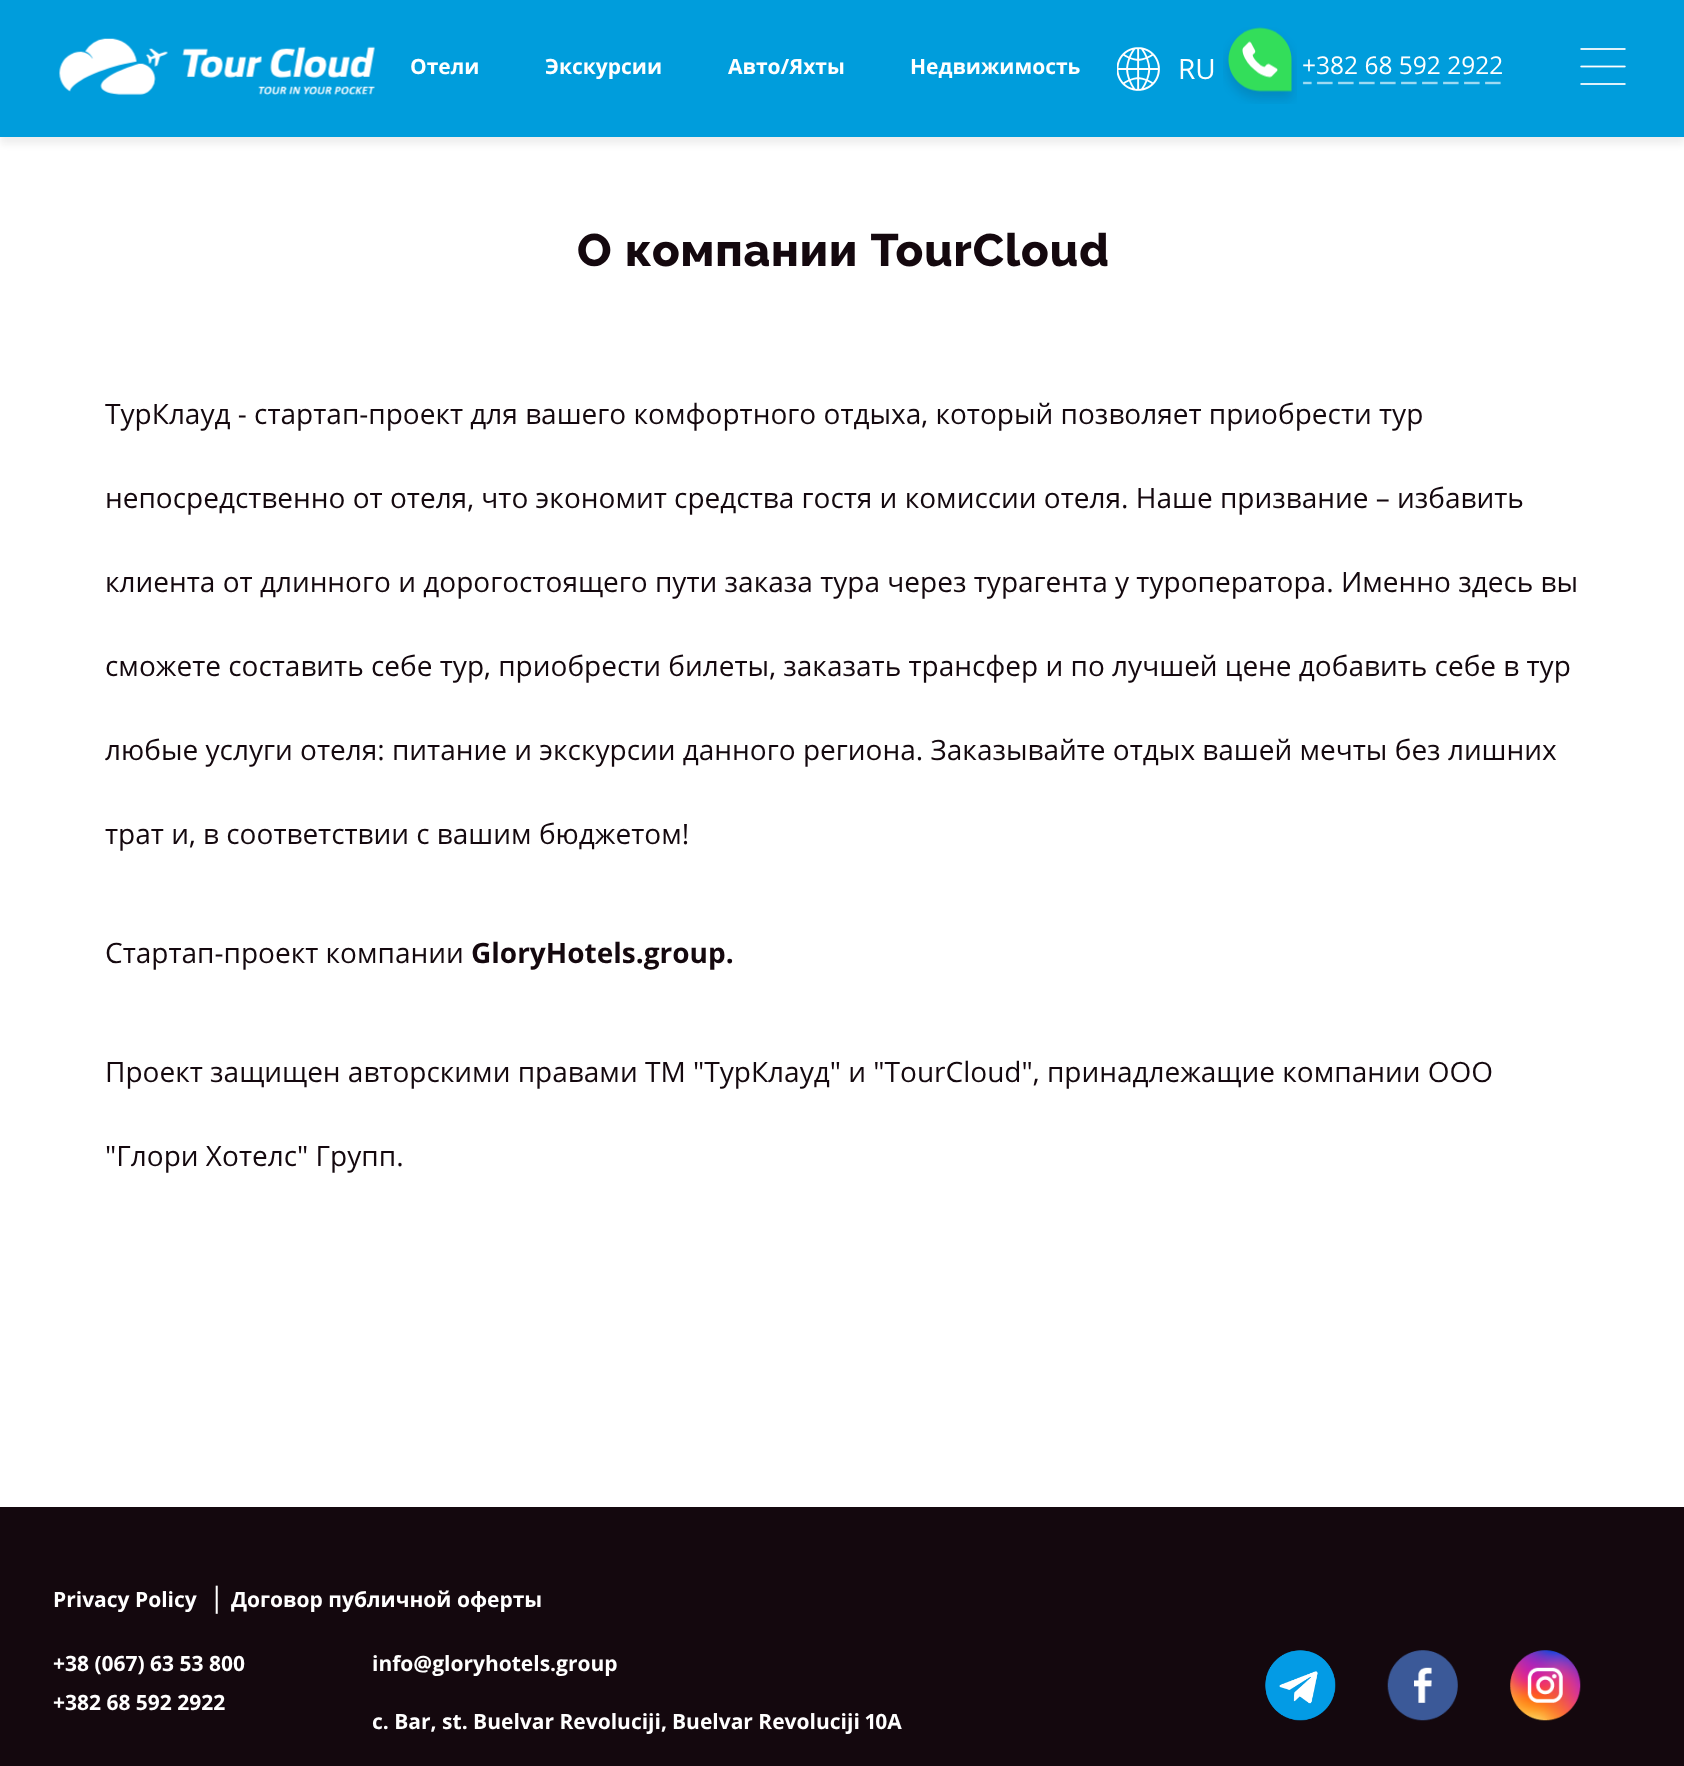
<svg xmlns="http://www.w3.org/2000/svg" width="1684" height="1766">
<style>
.a{font:bold 21px Open Sans;fill:#fff}
.b{font:28px Open Sans;fill:#fff}
.c{font:24.5px Open Sans;fill:#fff}
.d{font:800 45.5px Raleway;letter-spacing:0.9px;fill:#14080e}
.e{font:28px Open Sans;fill:#14080e}
.f{font:bold 28px Open Sans;fill:#14080e}
.g{font:bold 21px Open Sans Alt;fill:#fff}
</style>
<rect width="100%" height="100%" fill="#fff"/>
<path fill="#14080e12" filter="blur(3.5px)" d="M0 7h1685v137H0z"/>
<path fill="#009ddc" d="M0 0h1684v137H0z"/>
<image href="1.png" x="59" y="38" width="316" height="57"/>
<image href="2.png" x="1117" y="47" width="43" height="44"/>
<image href="3.png" x="1223" y="27" width="74" height="77"/>
<image href="4.png" x="1302" y="81" width="199" height="4"/>
<image href="5.png" x="1580" y="48" width="46" height="37"/>
<path fill="#14080e" d="M0 1507h1684v259H0z"/>
<image href="6.png" x="1265" y="1650" width="71" height="71"/>
<image href="7.png" x="1387" y="1650" width="71" height="71"/>
<image href="8.png" x="1510" y="1650" width="71" height="71"/>
<text class="a" x="410" y="74">Отели</text>
<text class="a" x="545" y="74">Экскурсии</text>
<text class="a" x="728" y="74">Авто/Яхты</text>
<text class="a" x="910" y="74">Недвижимость</text>
<text class="b" x="1178" y="79">RU</text>
<text class="c" x="1302" y="74">+382 68 592 2922</text>
<text class="d" x="577" y="266" word-spacing="1">О компании TourCloud</text>
<text class="e" x="105" y="424">ТурКлауд - стартап-проект для вашего комфортного отдыха, который позволяет приобрести тур</text>
<text class="e" x="105" y="508">непосредственно от отеля, что экономит средства гостя и комиссии отеля. Наше призвание – избавить</text>
<text class="e" x="105" y="592">клиента от длинного и дорогостоящего пути заказа тура через турагента у туроператора. Именно здесь вы</text>
<text class="e" x="105" y="676">сможете составить себе тур, приобрести билеты, заказать трансфер и по лучшей цене добавить себе в тур</text>
<text class="e" x="105" y="760">любые услуги отеля: питание и экскурсии данного региона. Заказывайте отдых вашей мечты без лишних</text>
<text class="e" x="105" y="844">трат и, в соответствии с вашим бюджетом!</text>
<text class="e" x="105" y="963">Стартап-проект компании</text>
<text class="f" x="471" y="963">GloryHotels.group.</text>
<text class="e" x="105" y="1082">Проект защищен авторскими правами ТМ "ТурКлауд" и "TourCloud", принадлежащие компании ООО</text>
<text class="e" x="105" y="1166">"Глори Хотелс" Групп.</text>
<text class="a" x="53" y="1607">Privacy Policy</text>
<text class="b" x="209" y="1607">|</text>
<text class="a" x="231" y="1607">Договор публичной оферты</text>
<text class="a" x="53" y="1671">+38 (067) 63 53 800</text>
<text class="a" x="53" y="1710">+382 68 592 2922</text>
<text class="a" x="372" y="1671">info@gloryhotels.group</text>
<text class="a" x="372" y="1729">c. Bar, st. Buelvar Revoluciji,</text>
<text class="g" x="672" y="1729">Buelvar Revoluciji 10A</text>
</svg>
